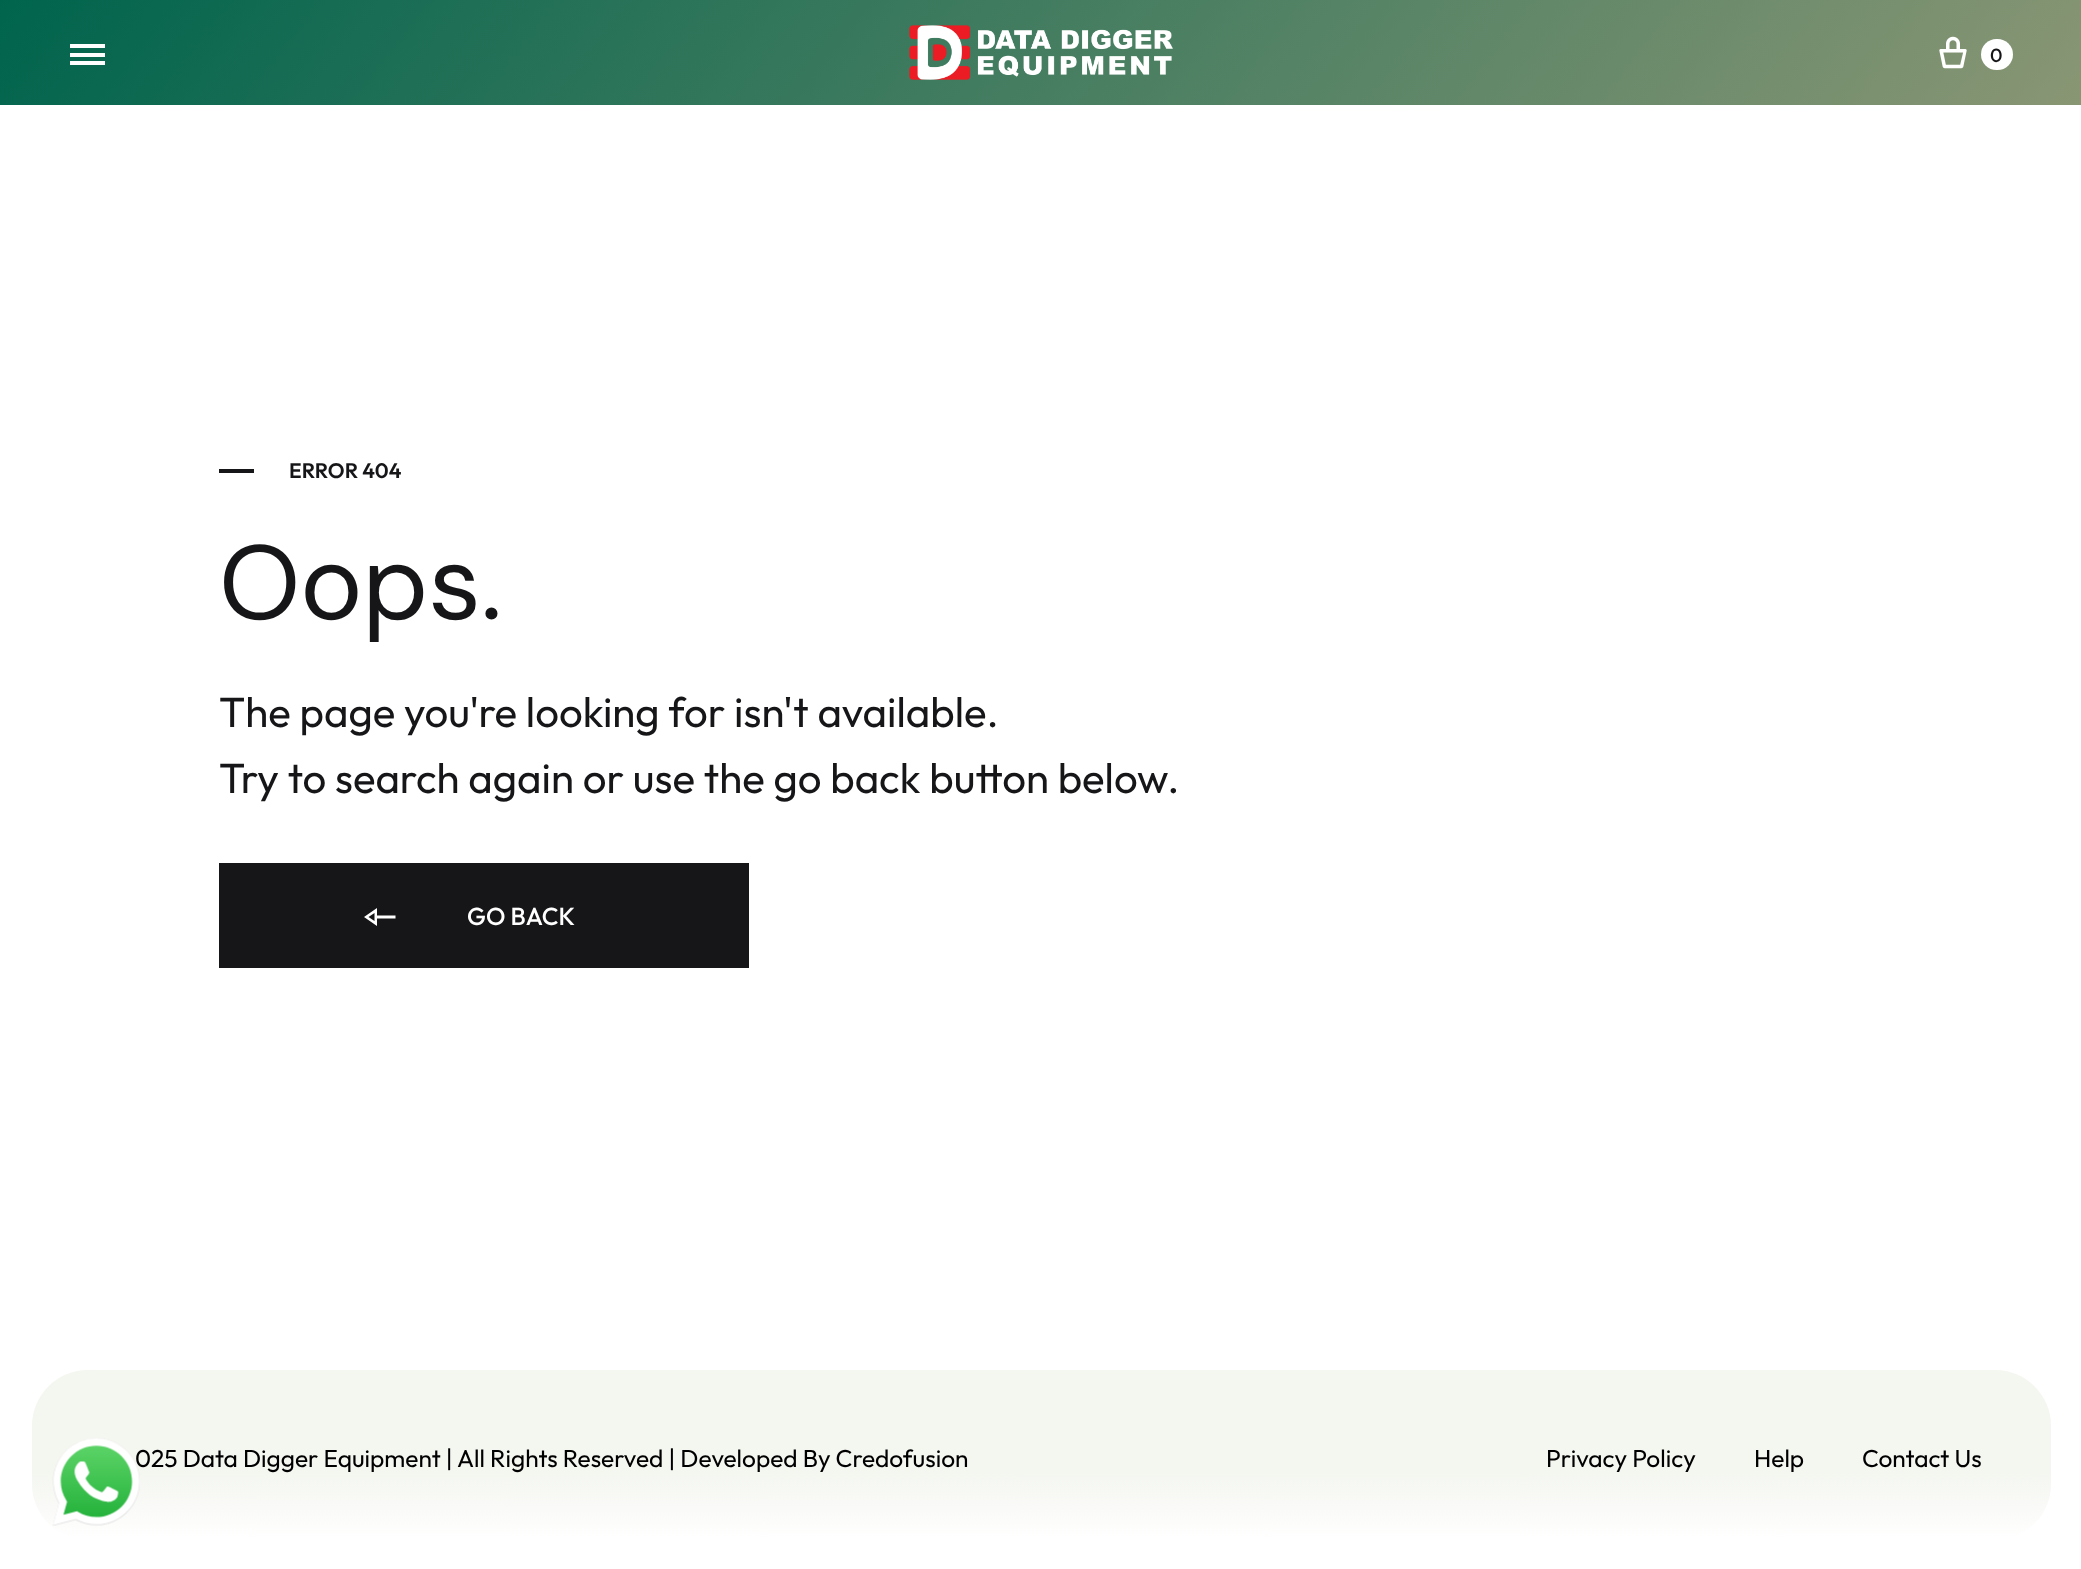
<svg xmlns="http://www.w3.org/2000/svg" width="2081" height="1569">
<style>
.a{font:500 19px Outfit;fill:#161619}
.b{font:600 21px Outfit;fill:#161619}
.c{font:105px DM Sans;fill:#161619}
.d{font:100 42px Outfit;fill:#161619}
.e{font:500 24.5px Outfit;fill:#fff}
.f{font:100 24.5px Outfit;fill:#000}
</style>
<defs>
<linearGradient id="g1" gradientUnits="userSpaceOnUse" x1="369" y1="-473" x2="1713" y2="578"><stop offset="0" stop-color="#00644d"/><stop offset="1" stop-color="#899674"/></linearGradient>
<linearGradient id="g2" gradientUnits="userSpaceOnUse" x1="1041" y1="1370" x2="1041" y2="1540"><stop offset="0.6" stop-color="#f4f6f0"/><stop offset="1" stop-color="#fff"/></linearGradient>
</defs>
<rect width="100%" height="100%" fill="#fff"/>
<path fill="url(#g1)" d="M0 0h2081v105H0z"/>
<path fill="#fff" d="M70 53h35v4H70z"/>
<path fill="#fff" d="M70 44h35v4H70z"/>
<path fill="#fff" d="M70 61h35v4H70z"/>
<image href="1.png" x="909" y="25" width="264" height="55"/>
<image href="2.png" x="1939" y="36" width="28" height="33"/>
<rect fill="#fff" x="1981" y="39" width="32" height="31" rx="15.5"/>
<path fill="#161619" d="M219 469h35v4H219z"/>
<path fill="#161619" d="M219 863h530v105H219z"/>
<path fill="#fff" d="M377 918.5h18.5v-3h-18.5v-7.5l-13 9l13 9zm-8.5-1.5l6-4v8z"/>
<rect fill="url(#g2)" x="32" y="1370" width="2019" height="170" rx="56"/>
<text class="a" x="1990" y="62">0</text>
<text class="b" x="289" y="478">ERROR 404</text>
<text class="c" x="219" y="619">Oops.</text>
<text class="d" x="219" y="727">The page you're looking for isn't available.</text>
<text class="d" x="219" y="793">Try to search again or use the go back button below.</text>
<text class="e" x="467" y="925">GO BACK</text>
<text class="f" x="135" y="1467">025 Data Digger Equipment | All Rights Reserved | Developed By Credofusion</text>
<text class="f" x="1546" y="1467">Privacy Policy</text>
<text class="f" x="1754" y="1467">Help</text>
<text class="f" x="1862" y="1467">Contact Us</text>
<image href="3.png" x="52" y="1438" width="88" height="88"/>
</svg>
